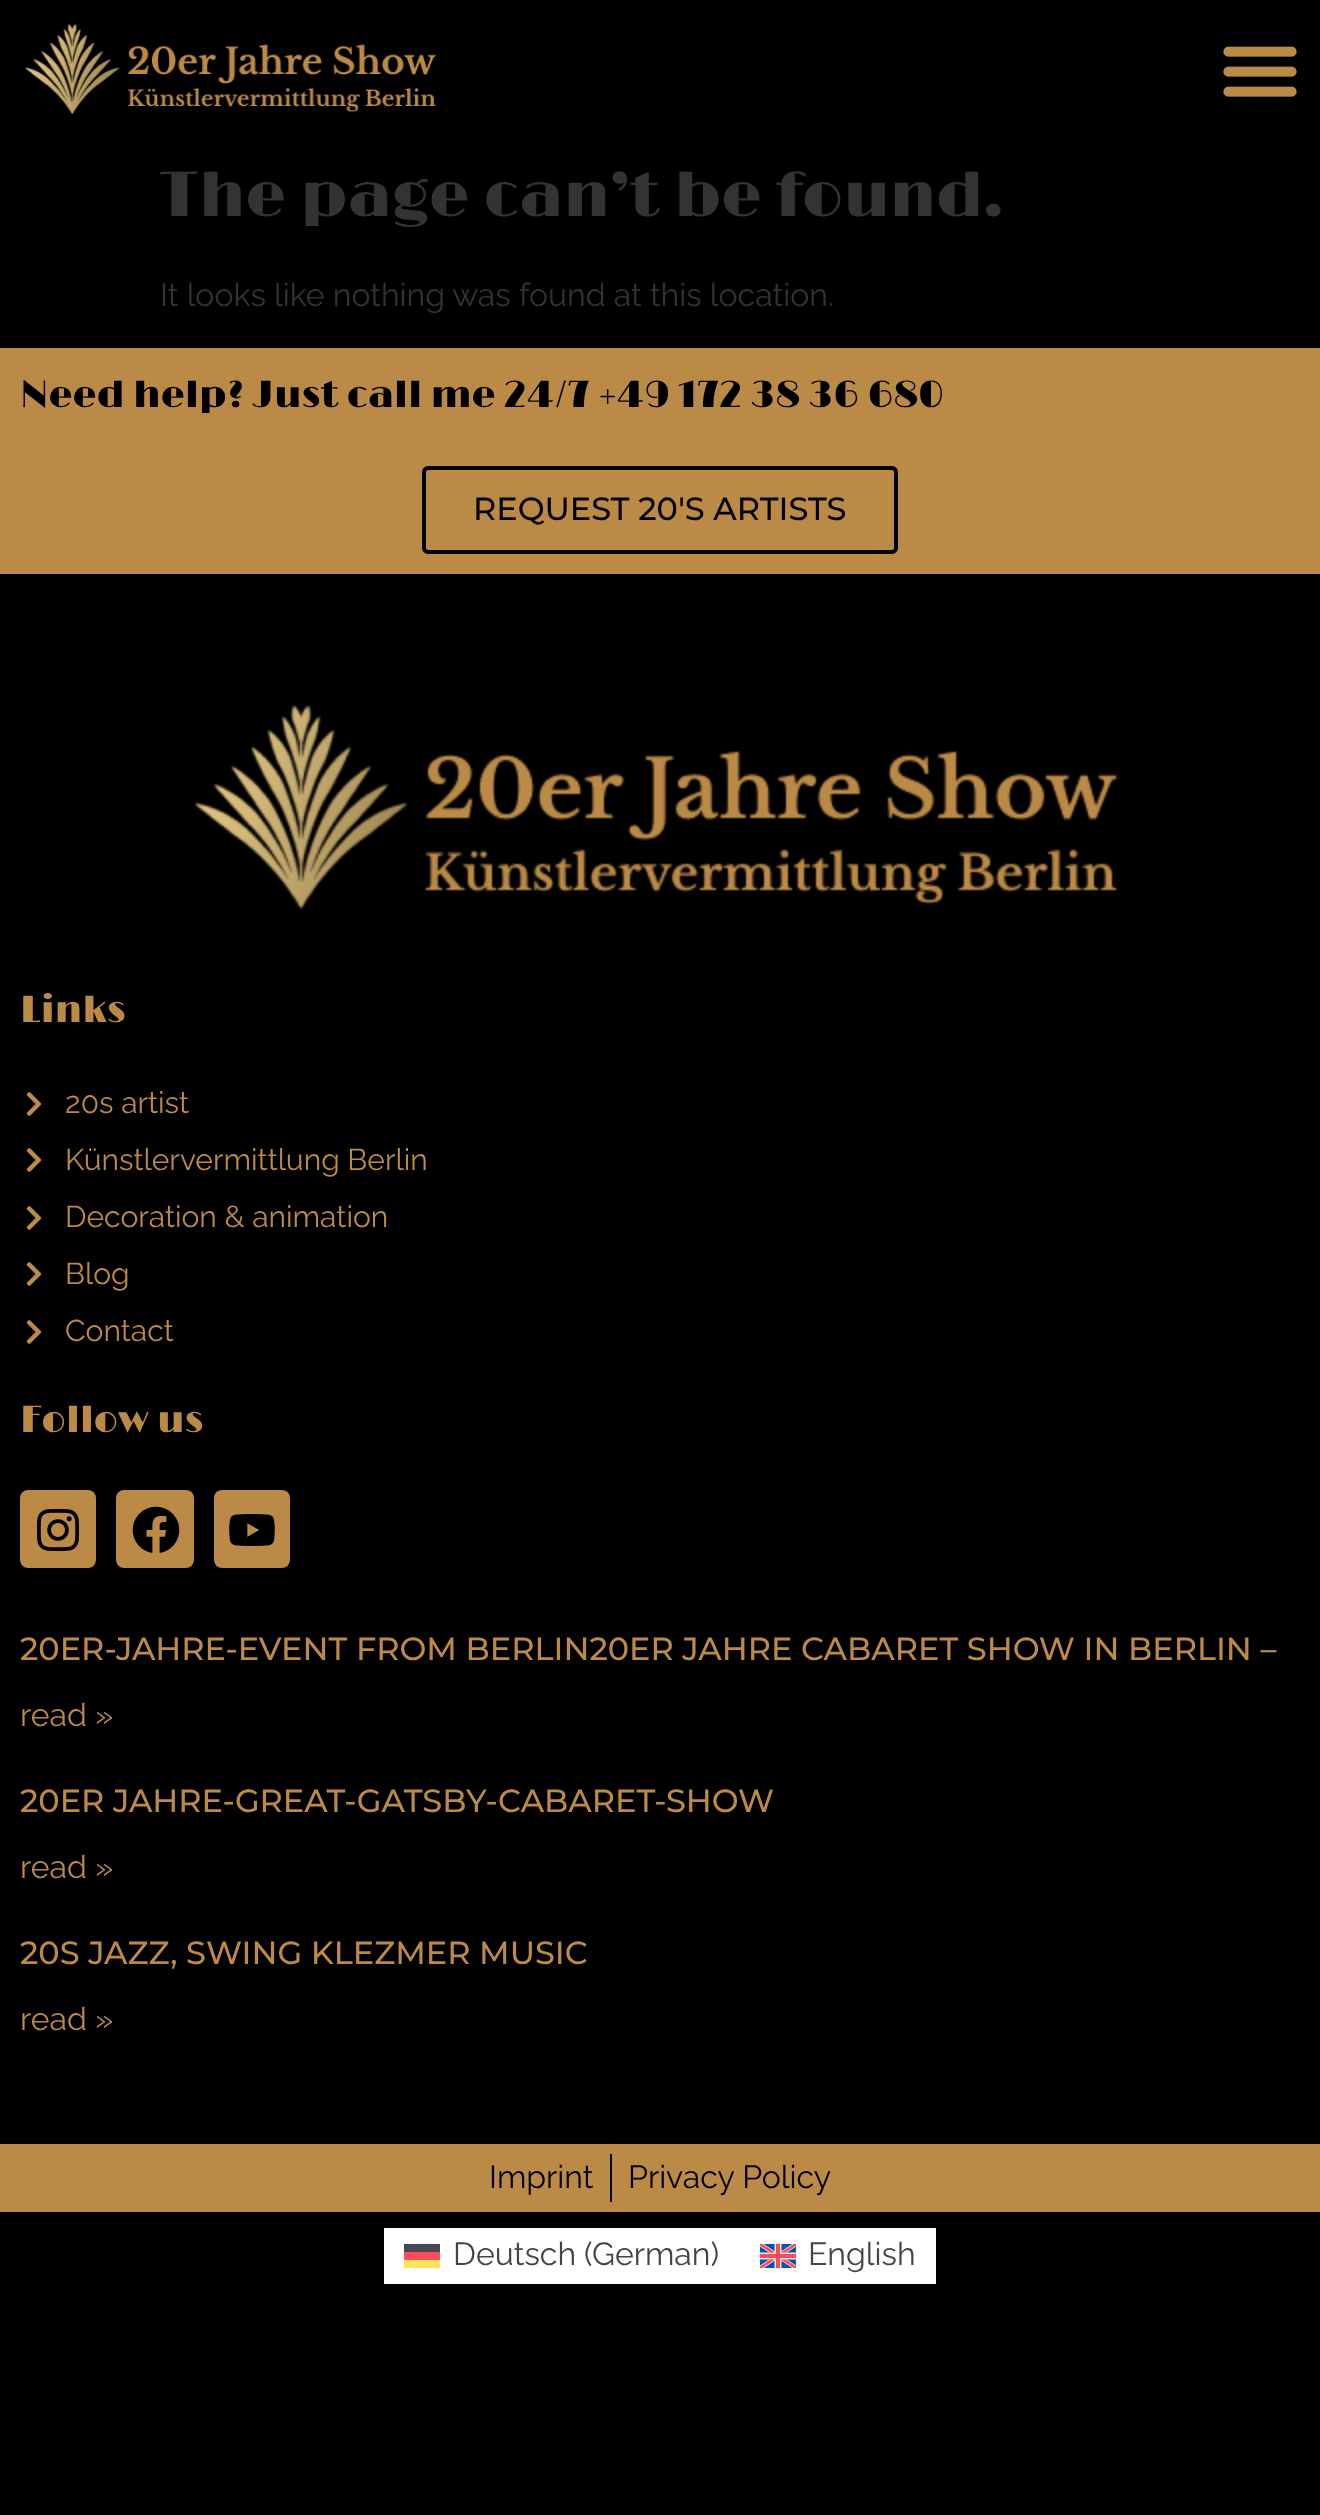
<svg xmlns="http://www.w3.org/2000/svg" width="1320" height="2515">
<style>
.a{font:300 64px Limelight;fill:#333}
.b{font:32px Raleway;fill:#333}
.c{font:300 38px Limelight;fill:#000}
.d{font:500 32px Montserrat;fill:#000}
.e{font:300 38px Limelight;fill:#bb8a46}
.f{font:30px Raleway;fill:#bb8a46}
.g{font:500 32px Montserrat;fill:#bb8a46}
.h{font:32px Raleway;fill:#bb8a46}
.i{font:32px Raleway;fill:#000}
.j{font:32px Raleway;fill:#444}
</style>
<rect width="100%" height="100%" fill="#000"/>
<image href="1.png" x="25" y="24" width="412" height="91"/>
<image href="2.png" x="1223" y="46" width="74" height="51"/>
<path fill="#bb8a46" d="M0 348h1320v226H0z"/>
<rect fill="none" stroke="#000" stroke-width="4" x="424" y="468" width="472" height="84" rx="4"/>
<image href="3.png" x="195" y="705" width="924" height="205"/>
<image href="4.png" x="26" y="1092" width="16" height="24"/>
<image href="4.png" x="26" y="1148" width="16" height="24"/>
<image href="4.png" x="26" y="1206" width="16" height="24"/>
<image href="4.png" x="26" y="1262" width="16" height="24"/>
<image href="4.png" x="26" y="1320" width="16" height="24"/>
<rect fill="#bb8a46" x="20" y="1490" width="76" height="78" rx="8"/>
<image href="5.png" x="37" y="1509" width="42" height="42"/>
<rect fill="#bb8a46" x="116" y="1490" width="78" height="78" rx="8"/>
<image href="6.png" x="132" y="1506" width="48" height="47"/>
<rect fill="#bb8a46" x="214" y="1490" width="76" height="78" rx="8"/>
<image href="7.png" x="229" y="1514" width="46" height="32"/>
<path fill="#bb8a46" d="M0 2144h1320v68H0z"/>
<path fill="#000" d="M610 2154h2v48H610z"/>
<path fill="#fff" d="M384 2228h552v56H384z"/>
<path fill="#464655" d="M404 2244h36v8H404z"/>
<path fill="#ff4b55" d="M404 2252h36v8H404z"/>
<path fill="#ffe15a" d="M404 2260h36v8H404z"/>
<image href="8.png" x="760" y="2244" width="36" height="24"/>
<text class="a" x="160" y="216">The page can’t be found.</text>
<text class="b" x="160" y="306">It looks like nothing was found at this location.</text>
<text class="c" x="20" y="407">Need help? Just call me 24/7 +49 172 38 36 680</text>
<text class="d" x="473" y="520">REQUEST 20'S ARTISTS</text>
<text class="e" x="20" y="1022">Links</text>
<text class="f" x="65" y="1113">20s artist</text>
<text class="f" x="65" y="1170">Künstlervermittlung Berlin</text>
<text class="f" x="65" y="1227">Decoration &amp; animation</text>
<text class="f" x="65" y="1284">Blog</text>
<text class="f" x="65" y="1341">Contact</text>
<text class="e" x="20" y="1432">Follow us</text>
<text class="g" x="20" y="1660">20ER-JAHRE-EVENT FROM BERLIN20ER JAHRE CABARET SHOW IN BERLIN –</text>
<text class="h" x="20" y="1726">read »</text>
<text class="g" x="20" y="1812">20ER JAHRE-GREAT-GATSBY-CABARET-SHOW</text>
<text class="h" x="20" y="1878">read »</text>
<text class="g" x="20" y="1964">20S JAZZ, SWING KLEZMER MUSIC</text>
<text class="h" x="20" y="2030">read »</text>
<text class="i" x="489" y="2188">Imprint</text>
<text class="i" x="628" y="2188">Privacy Policy</text>
<text class="j" x="453" y="2265">Deutsch</text>
<text class="j" x="584" y="2265">(German)</text>
<text class="j" x="808" y="2265">English</text>
</svg>
